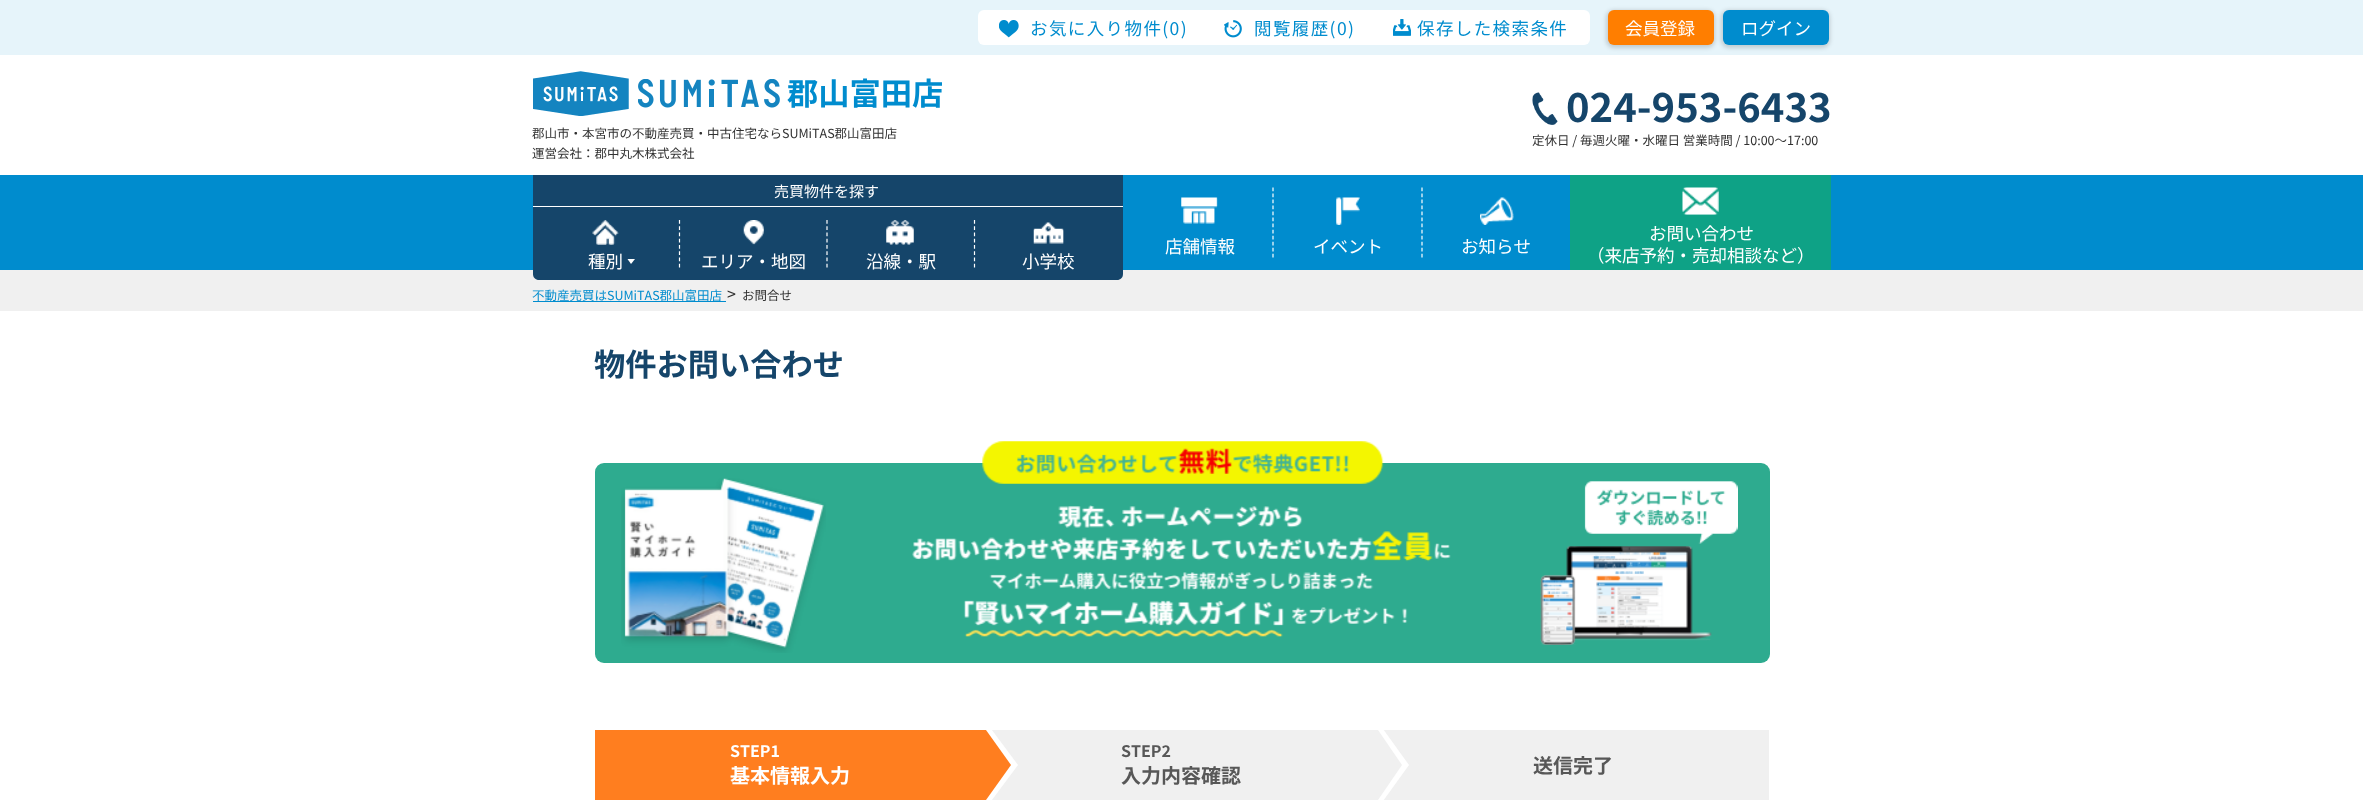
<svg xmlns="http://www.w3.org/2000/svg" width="2363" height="810">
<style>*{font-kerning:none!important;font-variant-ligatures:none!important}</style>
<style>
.a{font:17.5px Noto Sans JP;letter-spacing:1.4px;fill:#008cce}
.b{font:17.5px Noto Sans JP;fill:#fff}
.c{font:bold 31.25px Noto Sans JP;fill:#008cce}
.d{font:12.5px Noto Sans JP;fill:#313131}
.e{font:bold 40px Noto Sans JP;fill:#15456a}
.f{font:15px Noto Sans JP;fill:#fff}
.g{font:12.5px Noto Sans JP;fill:#008cce}
.h{font:16px Noto Sans JP;fill:#313131}
.i{font:bold 31.25px Noto Sans JP;fill:#15456a}
.j{font:bold 16px Noto Sans JP;fill:#fff}
.k{font:bold 20px Noto Sans JP;fill:#fff}
.l{font:bold 16px Noto Sans JP;fill:#575757}
.m{font:bold 20px Noto Sans JP;fill:#575757}
</style>
<rect width="100%" height="100%" fill="#fff"/>
<path fill="#e6f4fa" d="M0 0h2363v55H0z"/>
<rect fill="#fff" x="978" y="10" width="612" height="35" rx="6"/>
<image href="1.png" x="999" y="20" width="20" height="18"/>
<image href="2.png" x="1224" y="20" width="18" height="18"/>
<image href="3.png" x="1393" y="19" width="18" height="17"/>
<rect fill="#00000029" filter="blur(2px)" x="1606" y="10" width="109" height="38" rx="8"/>
<rect fill="#ff7e00" x="1608" y="10" width="106" height="35" rx="6"/>
<rect fill="#00000029" filter="blur(2px)" x="1721" y="10" width="109" height="38" rx="8"/>
<rect fill="#008cce" x="1723" y="10" width="106" height="35" rx="6"/>
<image href="4.png" x="533" y="71" width="96" height="45"/>
<image href="5.png" x="638" y="79" width="142" height="29"/>
<image href="6.png" x="1532" y="92" width="26" height="33"/>
<path fill="#008cce" d="M0 175h2363v95H0z"/>
<path fill="#f0f0f0" d="M0 270h2363v41H0z"/>
<path fill="#15456a" d="M533 175h590v99c0 3.5-2.5 6-6 6h-578c-3.5 0-6-2.5-6-6z"/>
<path fill="#fff" d="M533 206h590v1H533z"/>
<image href="7.png" x="592" y="220" width="27" height="25"/>
<path fill="#fff" d="M627.5 259h7.5l-4 5z"/>
<path fill="none" stroke="#fff" stroke-width="1.2" stroke-dasharray="3.75 2.5" d="M679.5 220v47.5"/>
<image href="8.png" x="743" y="220" width="21" height="25"/>
<path fill="none" stroke="#fff" stroke-width="1.2" stroke-dasharray="3.75 2.5" d="M827 220v47.5"/>
<image href="9.png" x="886" y="220" width="28" height="25"/>
<path fill="none" stroke="#fff" stroke-width="1.2" stroke-dasharray="3.75 2.5" d="M974.5 220v47.5"/>
<image href="10.png" x="1033" y="222" width="31" height="22"/>
<image href="11.png" x="1181" y="197" width="37" height="27"/>
<path fill="none" stroke="#fff" stroke-width="1.2" stroke-dasharray="3.75 2.27" d="M1273 187.5v70"/>
<image href="12.png" x="1336" y="197" width="24" height="28"/>
<path fill="none" stroke="#fff" stroke-width="1.2" stroke-dasharray="3.75 2.27" d="M1422 187.5v70"/>
<image href="13.png" x="1480" y="197" width="34" height="28"/>
<path fill="#0ea286" d="M1570 175h261v95H1570z"/>
<image href="14.png" x="1682" y="187" width="37" height="28"/>
<path fill="#008cce" d="M533 301h193v1H533z"/>
<rect fill="#2eab8f" x="595" y="463" width="1175" height="200" rx="9"/>
<image href="15.png" x="982" y="441" width="402" height="43"/>
<image href="16.png" x="621" y="478" width="205" height="175"/>
<image href="17.png" x="912" y="505" width="539" height="132"/>
<image href="18.png" x="1540" y="481" width="198" height="164"/>
<path fill="#ff7e1f" d="M595 730h391v70H595z"/>
<path fill="#f0f0f0" d="M992 730h386v70H992z"/>
<path fill="#fff" d="M986 808v-86l32 43z"/>
<path fill="#ff7e1f" d="M986 800v-70l25 35z"/>
<path fill="#f0f0f0" d="M1383 730h386v70H1383z"/>
<path fill="#fff" d="M1378 808v-86l31 43z"/>
<path fill="#f0f0f0" d="M1378 800v-70l24 35z"/>
<text class="a" x="1030" y="35">お気に入り物件(0)</text>
<text class="a" x="1254" y="35">閲覧履歴(0)</text>
<text class="a" x="1417" y="35">保存した検索条件</text>
<text class="b" x="1625" y="35">会員登録</text>
<text class="b" x="1741" y="35">ログイン</text>
<text class="c" x="787" y="105">郡山富田店</text>
<text class="d" x="532" y="138">郡山市・本宮市の不動産売買・中古住宅ならSUMiTAS郡山富田店</text>
<text class="d" x="532" y="158">運営会社：郡中丸木株式会社</text>
<text class="e" x="1566" y="122">024-953-6433</text>
<text class="d" x="1532" y="145">定休日 / 毎週火曜・水曜日 営業時間 / 10:00〜17:00</text>
<text class="f" x="774" y="197">売買物件を探す</text>
<text class="b" x="588" y="268">種別</text>
<text class="b" x="701" y="268">エリア・地図</text>
<text class="b" x="866" y="268">沿線・駅</text>
<text class="b" x="1022" y="268">小学校</text>
<text class="b" x="1165" y="253">店舗情報</text>
<text class="b" x="1313" y="253">イベント</text>
<text class="b" x="1461" y="253">お知らせ</text>
<text class="b" x="1649" y="240">お問い合わせ</text>
<text class="b" x="1587" y="262">（来店予約・売却相談など）</text>
<text class="g" x="532" y="300">不動産売買はSUMiTAS郡山富田店</text>
<text class="h" x="727" y="300">&gt;</text>
<text class="d" x="742" y="300">お問合せ</text>
<text class="i" x="594" y="376">物件お問い合わせ</text>
<text class="j" x="730" y="757">STEP1</text>
<text class="k" x="730" y="783">基本情報入力</text>
<text class="l" x="1121" y="757">STEP2</text>
<text class="m" x="1121" y="783">入力内容確認</text>
<text class="m" x="1533" y="773">送信完了</text>
</svg>
